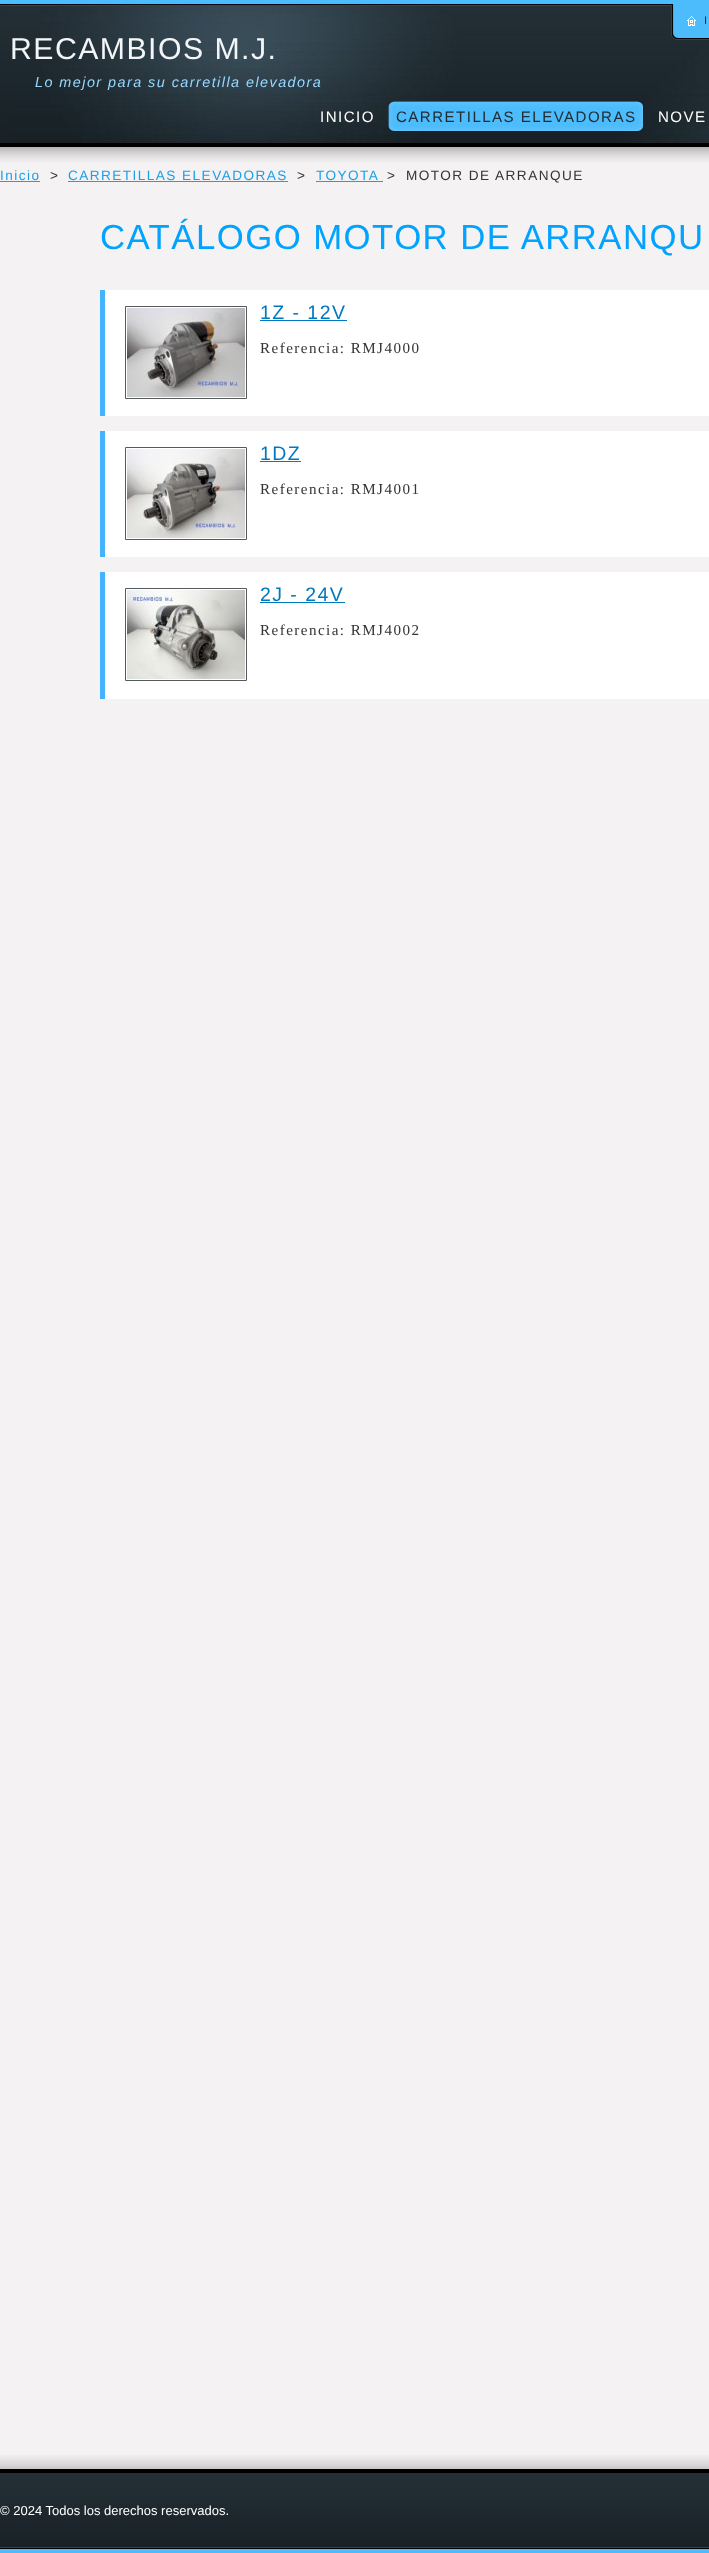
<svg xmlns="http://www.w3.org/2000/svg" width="709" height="2553">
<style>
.a{font:11px Liberation Sans;fill:#212c33}
.b{font:30.25px Liberation Sans;letter-spacing:1.45px;fill:#f3f6f9}
.c{font:italic 14.4px Liberation Sans;letter-spacing:1.45px;fill:#96d9ff}
.d{font:15.1px Liberation Sans;letter-spacing:1.45px;fill:#fff}
.e{font:15.1px Liberation Sans;letter-spacing:1.45px;fill:#212c33}
.f{font:13.6px Liberation Sans;letter-spacing:1.45px;fill:#1a9feb}
.g{font:13.6px Liberation Sans;letter-spacing:1.45px;fill:#353333}
.h{font:34.75px Liberation Sans;letter-spacing:1.45px;fill:#01a3ff}
.i{font:19.5px Liberation Sans;letter-spacing:1.45px;fill:#0079be}
.j{font:15.1px Liberation Serif;letter-spacing:1.45px;fill:#353333}
.k{font:13px Liberation Sans;fill:#fff}
</style>
<rect width="100%" height="100%" fill="#f4f2f2"/>
<image href="1.png" x="0" y="0" width="709" height="162"/>
<image href="5.png" x="10" y="2" width="699" height="142"/>
<image href="2.png" x="671" y="3" width="7" height="37"/>
<image href="3.png" x="678" y="3" width="31" height="37"/>
<image href="4.png" x="687" y="16" width="9" height="10"/>
<image href="6.png" x="388" y="101" width="6" height="31"/>
<image href="7.png" x="394" y="101" width="250" height="31"/>
<path fill="#1a9feb" d="M0 181h40v1H0z"/>
<path fill="#1a9feb" d="M68 181h220v1H68z"/>
<path fill="#1a9feb" d="M316 181h67v1H316z"/>
<path fill="#fff" d="M105 290h604v126H105z"/>
<path fill="#42b3fc" d="M100 290h5v126H100z"/>
<path fill="none" stroke="#555a5c" d="M125.5 306.5h121v92H125.5z"/>
<image href="8.png" x="127" y="308" width="118" height="89"/>
<path fill="#0079be" d="M260 320h87v1H260z"/>
<path fill="#fff" d="M105 431h604v126H105z"/>
<path fill="#42b3fc" d="M100 431h5v126H100z"/>
<path fill="none" stroke="#555a5c" d="M125.5 447.5h121v92H125.5z"/>
<image href="9.png" x="127" y="449" width="118" height="89"/>
<path fill="#0079be" d="M260 461h41v1H260z"/>
<path fill="#fff" d="M105 572h604v127H105z"/>
<path fill="#42b3fc" d="M100 572h5v127H100z"/>
<path fill="none" stroke="#555a5c" d="M125.5 588.5h121v92H125.5z"/>
<image href="10.png" x="127" y="590" width="118" height="89"/>
<path fill="#0079be" d="M260 602h85v1H260z"/>
<image href="11.png" x="0" y="2455" width="709" height="98"/>
<text class="a" x="704" y="24">I</text>
<text class="b" x="10" y="59">RECAMBIOS M.J.</text>
<text class="c" x="35" y="87">Lo mejor para su carretilla elevadora</text>
<text class="d" x="320" y="122">INICIO</text>
<text class="e" x="396" y="122">CARRETILLAS ELEVADORAS</text>
<text class="d" x="658" y="122">NOVE</text>
<text class="f" x="0" y="180">Inicio</text>
<text class="g" x="50" y="180">&gt;</text>
<text class="f" x="68" y="180">CARRETILLAS ELEVADORAS</text>
<text class="g" x="297" y="180">&gt;</text>
<text class="f" x="316" y="180">TOYOTA</text>
<text class="g" x="387" y="180">&gt;</text>
<text class="g" x="406" y="180">MOTOR DE ARRANQUE</text>
<text class="h" x="100" y="249">CATÁLOGO MOTOR DE ARRANQU</text>
<text class="i" x="260" y="319">1Z - 12V</text>
<text class="j" x="260" y="353">Referencia: RMJ4000</text>
<text class="i" x="260" y="460">1DZ</text>
<text class="j" x="260" y="494">Referencia: RMJ4001</text>
<text class="i" x="260" y="601">2J - 24V</text>
<text class="j" x="260" y="635">Referencia: RMJ4002</text>
<text class="k" x="0" y="2515">© 2024 Todos los derechos reservados.</text>
</svg>
